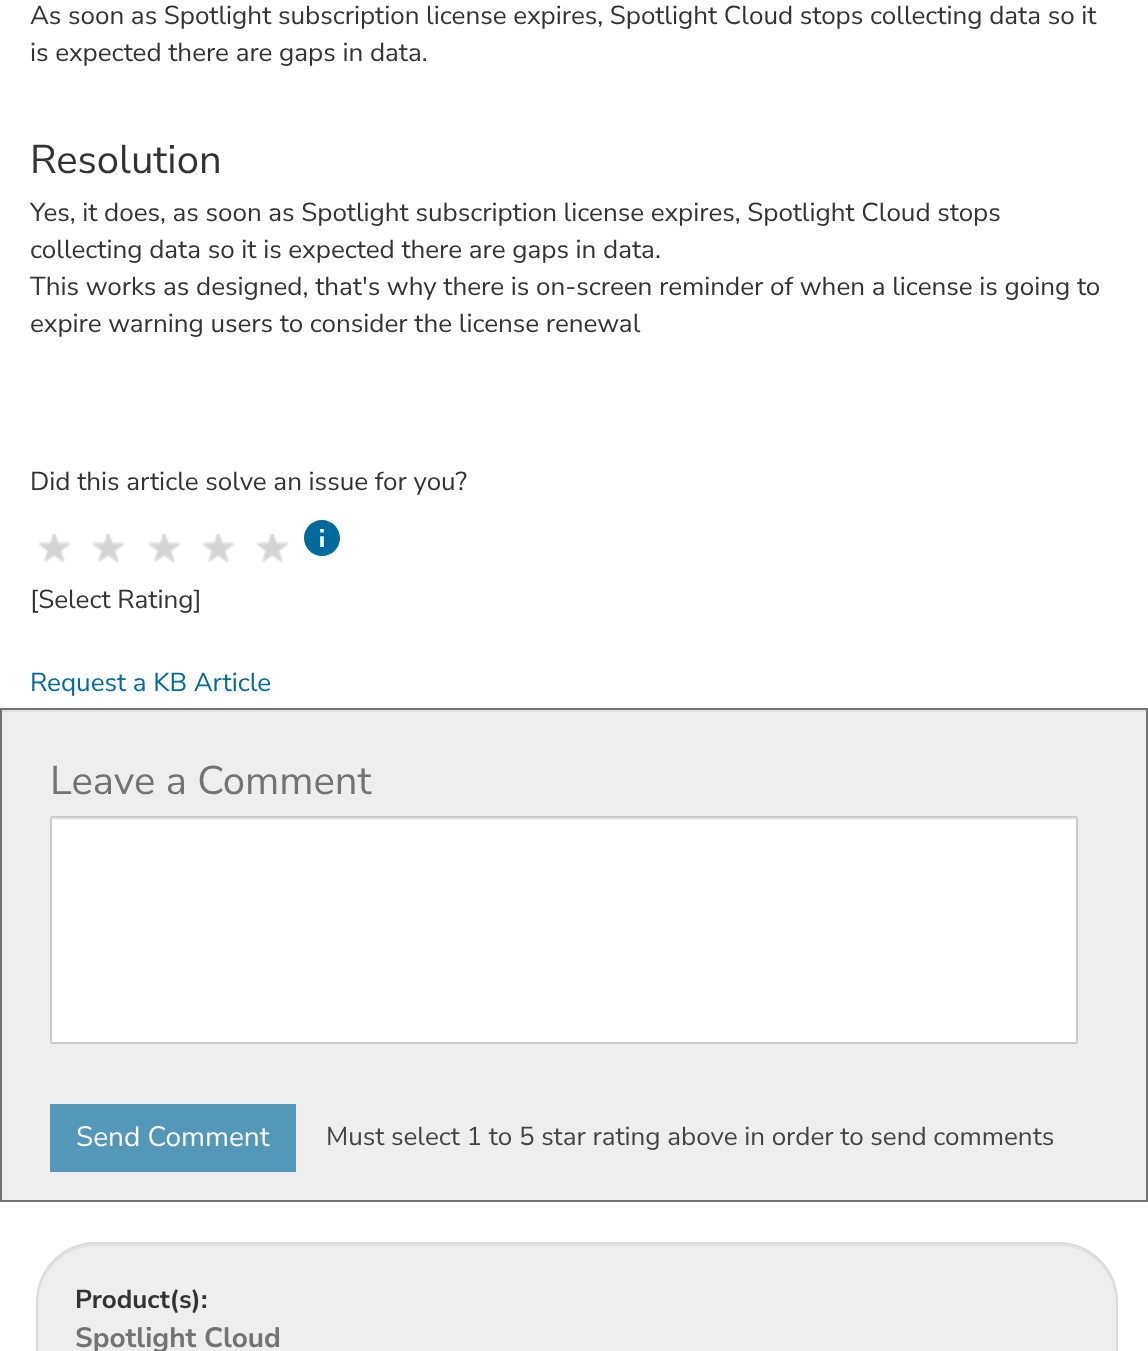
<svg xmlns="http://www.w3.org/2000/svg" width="1148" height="1351">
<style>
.a{font:26px Nunito Sans;fill:#333}
.b{font:40px Nunito Sans;fill:#333}
.c{font:26px Nunito Sans;fill:#016a9c}
.d{font:40px Nunito Sans;fill:#737373}
.e{font:28px Nunito Sans;fill:#f9f9f9}
.f{font:26px Nunito Sans;fill:#444}
.g{font:bold 26px Nunito Sans;fill:#333}
.h{font:bold 28px Nunito Sans;fill:#737373}
</style>
<rect width="100%" height="100%" fill="#fff"/>
<image href="1.png" x="38" y="534" width="33" height="29"/>
<image href="1.png" x="92" y="534" width="33" height="29"/>
<image href="1.png" x="148" y="534" width="33" height="29"/>
<image href="1.png" x="202" y="534" width="33" height="29"/>
<image href="1.png" x="256" y="534" width="33" height="29"/>
<image href="2.png" x="304" y="520" width="36" height="36"/>
<path fill="#eee" d="M2 712h1144v488H2z"/>
<path fill="#e2e2e2" d="M2 710h1144v2H2z"/>
<path fill="none" stroke="#737373" stroke-width="2" d="M1 709h1146v492H1z"/>
<rect fill="#fff" x="50" y="816" width="1028" height="228" rx="2"/>
<path fill="#ececec" d="M52 818h1024v2H52z"/>
<rect fill="none" stroke="#ccc" stroke-width="2" x="51" y="817" width="1026" height="226" rx="1"/>
<path fill="#5498b9" d="M50 1104h246v68H50z"/>
<rect fill="#eee" x="36" y="1242" width="1082" height="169" rx="60"/>
<path fill="#e2e2e2" d="M96 1246h962c32 0 58 26 58 58v-2c0-32-26-58-58-58h-962c-32 0-58 26-58 58v2c0-32 26-58 58-58z"/>
<rect fill="none" stroke="#dcdcdc" stroke-width="2" x="37" y="1243" width="1080" height="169" rx="59"/>
<text class="a" x="30" y="24">As soon as Spotlight subscription license expires, Spotlight Cloud stops collecting data so it</text>
<text class="a" x="30" y="61">is expected there are gaps in data.</text>
<text class="b" x="30" y="173">Resolution</text>
<text class="a" x="30" y="221">Yes, it does, as soon as Spotlight subscription license expires, Spotlight Cloud stops</text>
<text class="a" x="30" y="258">collecting data so it is expected there are gaps in data.</text>
<text class="a" x="30" y="295">This works as designed, that's why there is on-screen reminder of when a license is going to</text>
<text class="a" x="30" y="332">expire warning users to consider the license renewal</text>
<text class="a" x="30" y="490">Did this article solve an issue for you?</text>
<text class="a" x="30" y="608">[Select Rating]</text>
<text class="c" x="30" y="691">Request a KB Article</text>
<text class="d" x="50" y="794">Leave a Comment</text>
<text class="e" x="76" y="1146">Send Comment</text>
<text class="f" x="326" y="1145">Must select 1 to 5 star rating above in order to send comments</text>
<text class="g" x="75" y="1308">Product(s):</text>
<text class="h" x="75" y="1347">Spotlight Cloud</text>
</svg>
